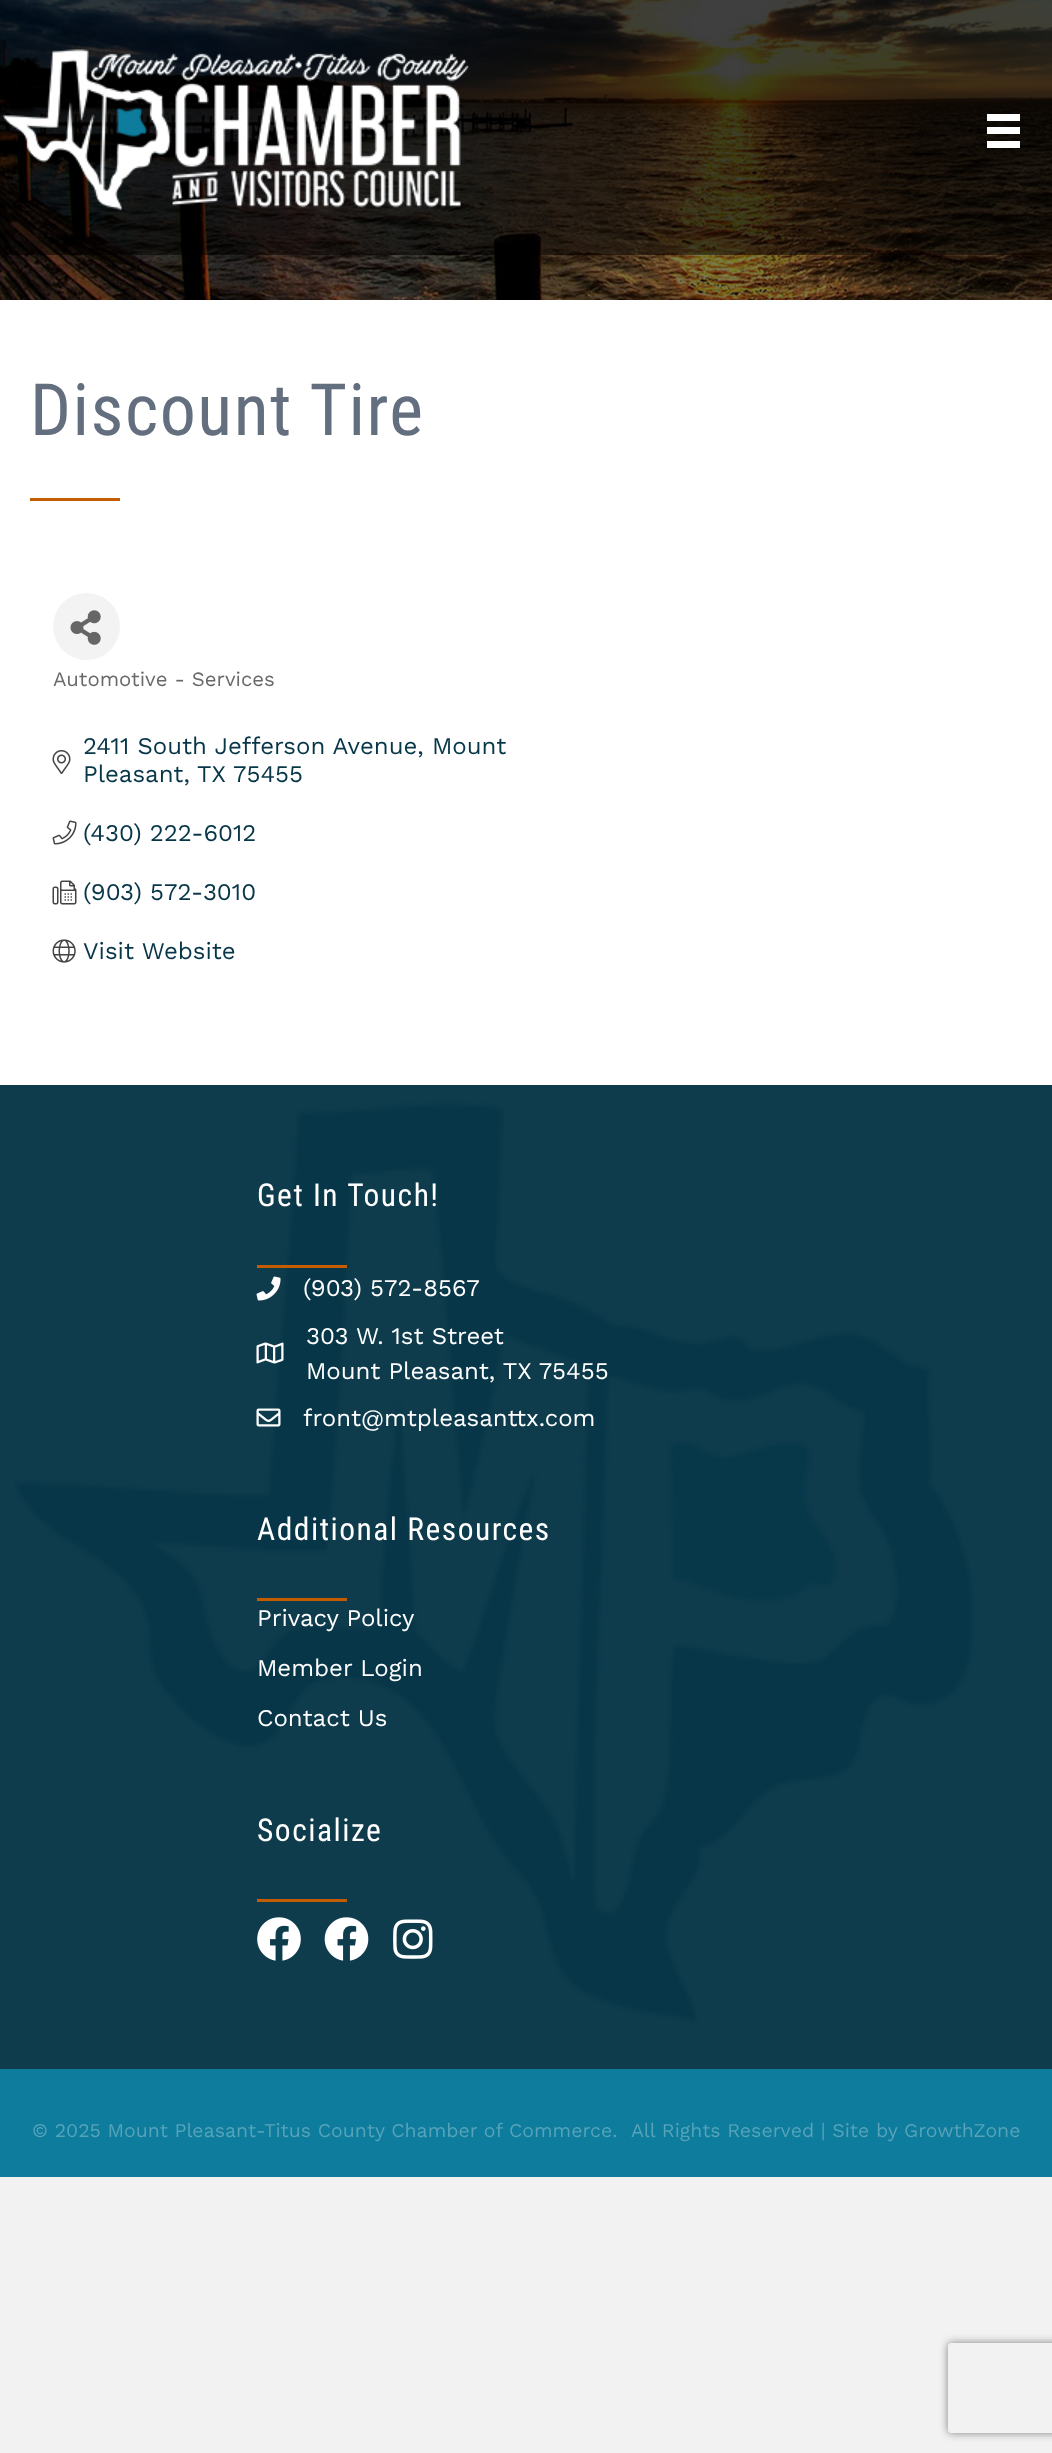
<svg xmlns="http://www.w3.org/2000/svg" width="1052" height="2453">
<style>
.a{font:72px Roboto Condensed;letter-spacing:1.5px;fill:#636e7f}
.b{font:20.4px Work Sans;fill:#696969}
.c{font:24px Work Sans;fill:#073648}
.d{font:31.5px Roboto Condensed;letter-spacing:1.5px;fill:#fff}
.e{font:24px Work Sans;fill:#fff}
.f{font:19.5px Work Sans;fill:#56a3ba}
</style>
<defs>
<clipPath id="clip1"><path d="M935 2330h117v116h-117zm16 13h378c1.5 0 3 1.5 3 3v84c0 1.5-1.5 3-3 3h-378c-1.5 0-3-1.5-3-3v-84c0-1.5 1.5-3 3-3z" clip-rule="evenodd"/></clipPath>
</defs>
<rect width="100%" height="100%" fill="#f2f2f2"/>
<path fill="#0e3c4d" d="M0 1085h1052v984H0z"/>
<image href="2.png" x="0" y="0" width="1052" height="300"/>
<path fill="#00000082" d="M0 0h1052v255H0z"/>
<image href="1.png" x="2" y="49" width="467" height="162"/>
<path fill="#fff" d="M987 114h33v7H987z"/>
<path fill="#fff" d="M987 127h33v7H987z"/>
<path fill="#fff" d="M987 141h33v7H987z"/>
<path fill="#fff" d="M0 300h1052v785H0z"/>
<path fill="#c45c01" d="M30 498h90v3H30z"/>
<circle fill="#f3f3f3" cx="86.5" cy="626.5" r="33.5"/>
<image href="3.png" x="70" y="610" width="31" height="35"/>
<image href="4.png" x="52" y="750" width="19" height="24"/>
<image href="5.png" x="52" y="820" width="25" height="25"/>
<image href="6.png" x="52" y="880" width="25" height="25"/>
<image href="7.png" x="52" y="939" width="24" height="24"/>
<image href="8.png" x="13" y="1101" width="962" height="922"/>
<path fill="#c45c01" d="M257 1265h90v3H257z"/>
<image href="9.png" x="256" y="1276" width="25" height="25"/>
<image href="10.png" x="256" y="1342" width="28" height="22"/>
<image href="11.png" x="256" y="1408" width="25" height="19"/>
<path fill="#c45c01" d="M257 1598h90v3H257z"/>
<path fill="#c45c01" d="M257 1899h90v3H257z"/>
<image href="12.png" x="257" y="1917" width="44" height="44"/>
<image href="13.png" x="324" y="1917" width="45" height="44"/>
<image href="14.png" x="393" y="1919" width="40" height="40"/>
<path fill="#0e7c9d" d="M0 2069h1052v108H0z"/>
<g clip-path="url(#clip1)">
<rect fill="#808080" filter="blur(4px)" x="948" y="2343" width="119" height="90" rx="3"/>
</g>
<text class="a" x="30" y="435">Discount Tire</text>
<text class="b" x="53" y="686">Automotive - Services</text>
<text class="c" x="83" y="754">2411 South Jefferson Avenue, Mount</text>
<text class="c" x="83" y="782">Pleasant,</text>
<text class="c" x="197" y="782">TX</text>
<text class="c" x="233" y="782">75455</text>
<text class="c" x="83" y="841">(430) 222-6012</text>
<text class="c" x="83" y="900">(903) 572-3010</text>
<text class="c" x="83" y="959">Visit Website</text>
<text class="d" x="257" y="1206">Get In Touch!</text>
<text class="e" x="303" y="1296">(903) 572-8567</text>
<text class="e" x="306" y="1344">303 W. 1st Street</text>
<text class="e" x="306" y="1379">Mount Pleasant, TX 75455</text>
<text class="e" x="303" y="1426">front@mtpleasanttx.com</text>
<text class="d" x="257" y="1540">Additional Resources</text>
<text class="e" x="257" y="1626">Privacy Policy</text>
<text class="e" x="257" y="1676">Member Login</text>
<text class="e" x="257" y="1726">Contact Us</text>
<text class="d" x="257" y="1841">Socialize</text>
<text class="f" x="32" y="2137">© 2025 Mount Pleasant-Titus County Chamber of Commerce.</text>
<text class="f" x="631" y="2137">All Rights Reserved | Site by GrowthZone</text>
</svg>
